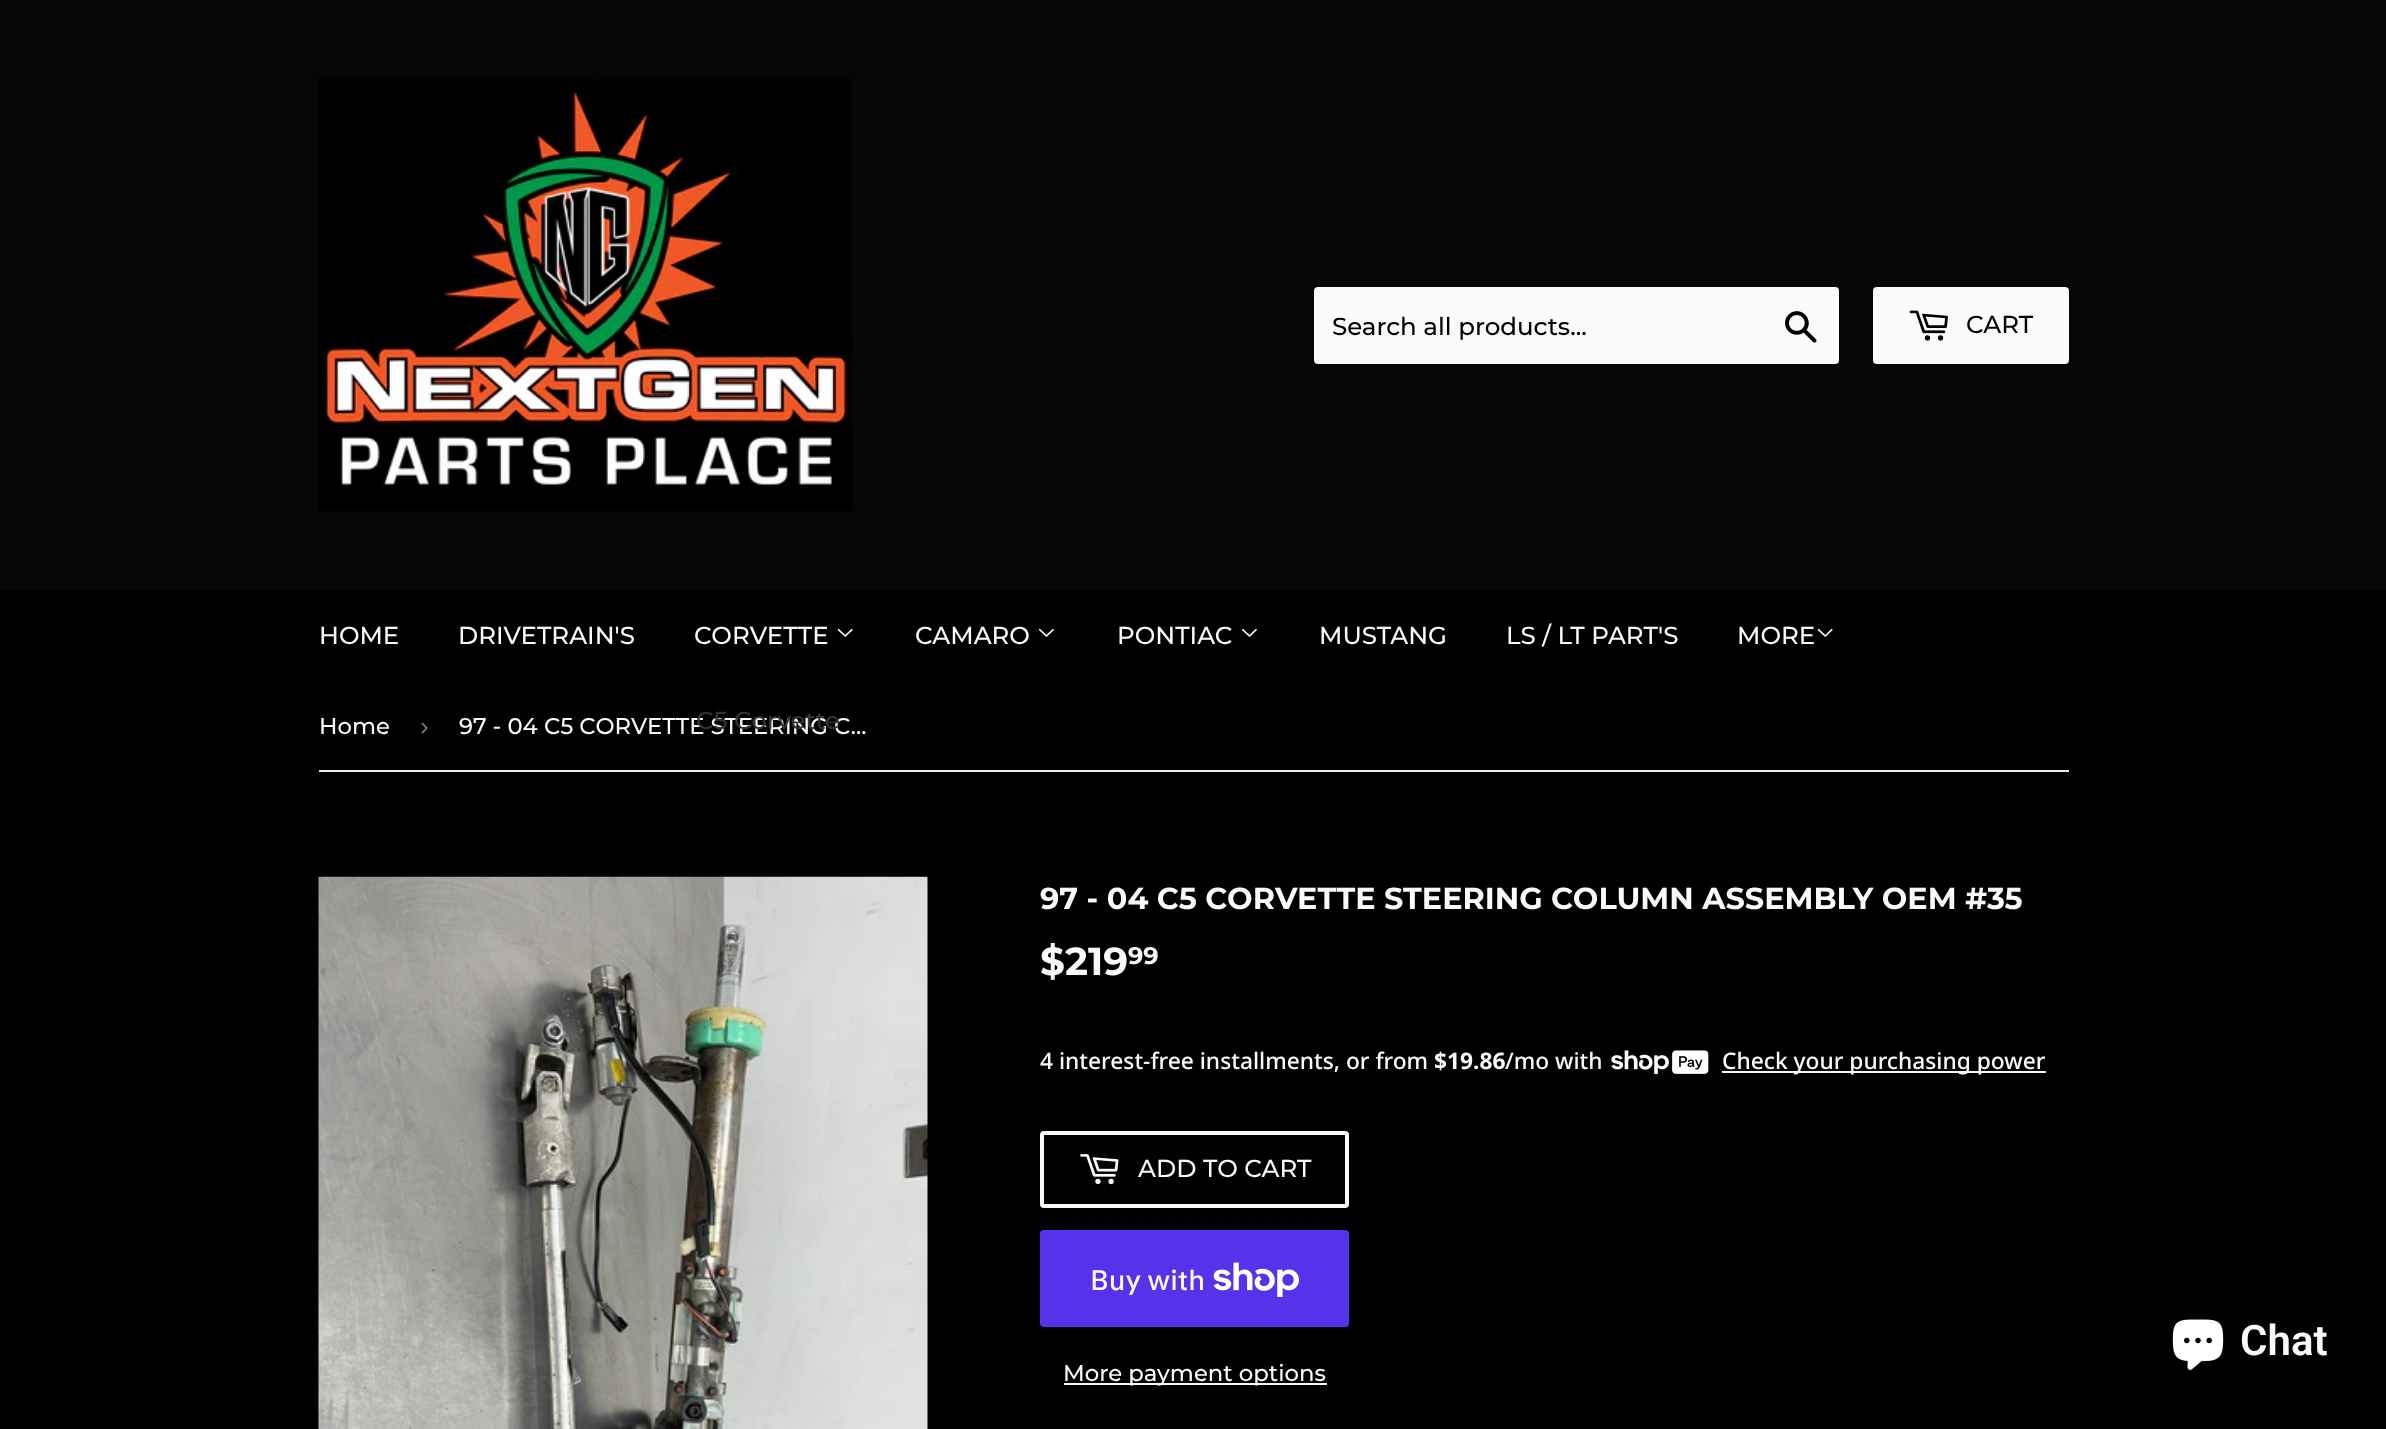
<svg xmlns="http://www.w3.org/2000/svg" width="2386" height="1429">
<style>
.a{font:500 24.5px Montserrat;fill:#000}
.b{font:500 24.5px Montserrat;fill:#fafafa}
.c{font:500 22.75px Montserrat;fill:#fafafa}
.d{font:26px Liberation Sans;fill:#767676}
.e{font:500 24.5px Montserrat;fill:#333}
.f{font:bold 30.3px Montserrat;fill:#fafafa}
.g{font:bold 39px Montserrat;fill:#fafafa}
.h{font:bold 24px Montserrat;fill:#fafafa}
.i{font:500 22.75px Noto Sans;fill:#fafafa}
.j{font:bold 22.75px Noto Sans;fill:#fafafa}
.k{font:500 28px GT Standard;fill:#fafafa}
.l{font:600 42px Roboto;fill:#fafafa}
</style>
<rect width="100%" height="100%" fill="#000"/>
<path fill="#080505" d="M0 0h2386v590H0z"/>
<image href="1.png" x="318" y="79" width="534" height="432"/>
<rect fill="#fafafa" x="1314" y="287" width="525" height="77" rx="4"/>
<image href="2.png" x="1785" y="311" width="32" height="32"/>
<rect fill="#fafafa" x="1873" y="287" width="196" height="77" rx="4"/>
<image href="3.png" x="1909" y="310" width="39" height="31"/>
<image href="4.png" x="837" y="628" width="16" height="9"/>
<image href="5.png" x="1039" y="628" width="15" height="9"/>
<image href="5.png" x="1242" y="628" width="15" height="9"/>
<image href="4.png" x="1817" y="628" width="16" height="9"/>
<path fill="#ececec" d="M319 770h1750v2H319z"/>
<image href="6.png" x="318" y="876" width="610" height="553"/>
<image href="7.png" x="1611" y="1050" width="98" height="24"/>
<path fill="#fafafa" d="M1722 1071h324v2H1722z"/>
<rect fill="none" stroke="#fafafa" stroke-width="4" x="1042" y="1133" width="305" height="73" rx="2"/>
<image href="8.png" x="1080" y="1154" width="39" height="31"/>
<rect fill="#5433eb" x="1040" y="1230" width="309" height="97" rx="4"/>
<image href="9.png" x="1213" y="1262" width="86" height="35"/>
<path fill="#fafafa" d="M1064 1383h263v2H1064z"/>
<image href="10.png" x="2172" y="1319" width="52" height="51"/>
<text class="a" x="1332" y="335">Search all products...</text>
<text class="a" x="1966" y="333">CART</text>
<text class="b" x="319" y="644">HOME</text>
<text class="b" x="458" y="644">DRIVETRAIN'S</text>
<text class="b" x="694" y="644">CORVETTE</text>
<text class="b" x="915" y="644">CAMARO</text>
<text class="b" x="1117" y="644">PONTIAC</text>
<text class="b" x="1319" y="644">MUSTANG</text>
<text class="b" x="1506" y="644">LS / LT PART'S</text>
<text class="b" x="1737" y="644">MORE</text>
<text class="c" x="319" y="734">Home</text>
<text class="d" x="420" y="735">›</text>
<text class="c" x="459" y="734">97 - 04 C5 CORVETTE STEERING C…</text>
<text class="e" x="696" y="729">C5 Corvette</text>
<text class="f" x="1040" y="909">97 - 04 C5 CORVETTE STEERING COLUMN ASSEMBLY OEM #35</text>
<text class="g" x="1040" y="975">$219</text>
<text class="h" x="1128" y="964">99</text>
<text class="i" x="1040" y="1069">4 interest-free installments, or from</text>
<text class="j" x="1434" y="1069">$19.86</text>
<text class="i" x="1505" y="1069">/mo with</text>
<text class="i" x="1722" y="1069">Check your purchasing power</text>
<text class="b" x="1138" y="1177">ADD TO CART</text>
<text class="k" x="1090" y="1290">Buy with</text>
<text class="c" x="1063" y="1381">More payment options</text>
<text class="l" x="2240" y="1355">Chat</text>
</svg>
